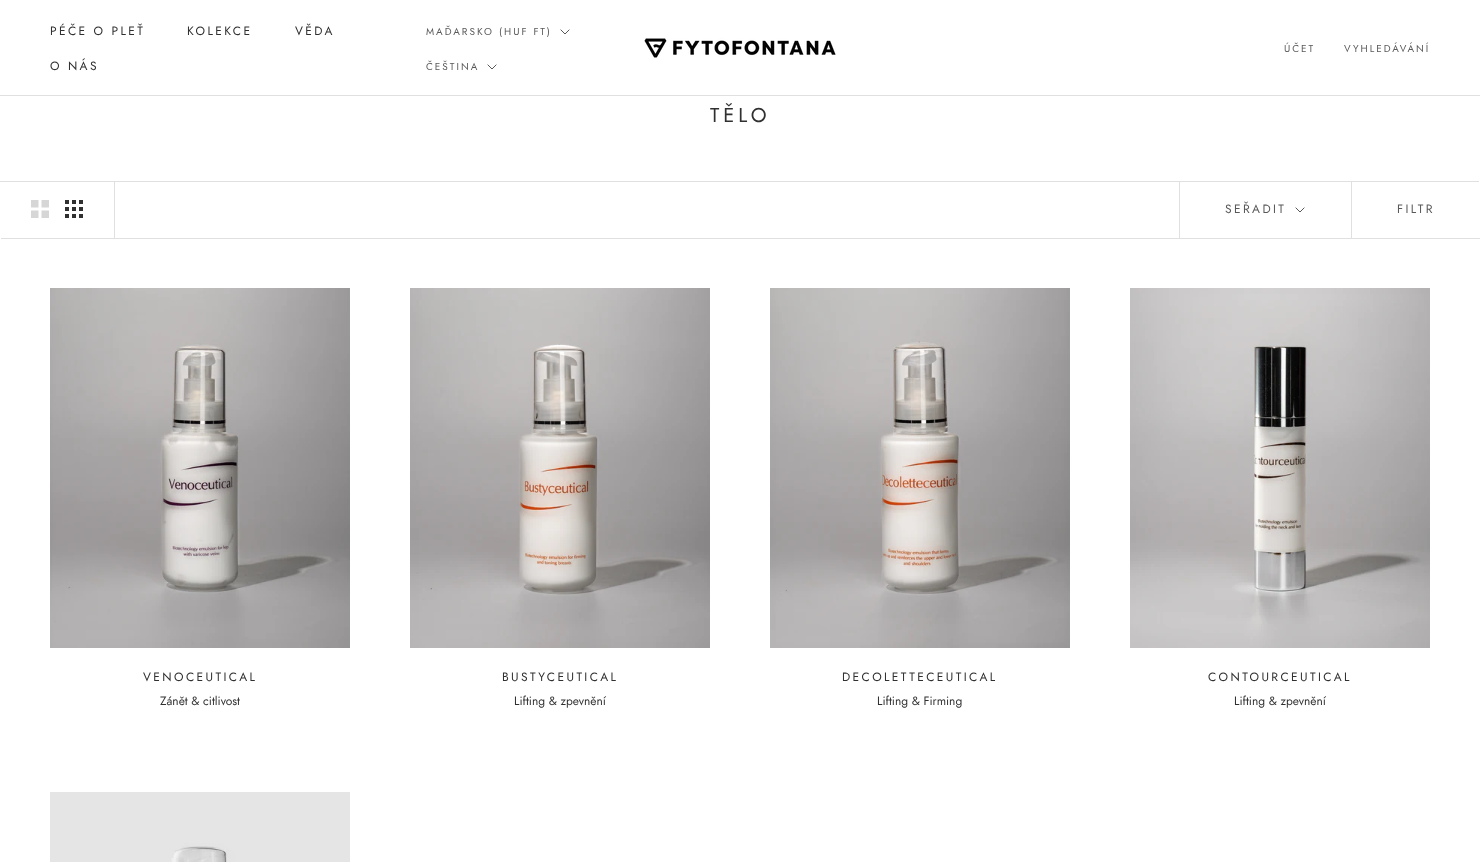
<svg xmlns="http://www.w3.org/2000/svg" width="1480" height="862">
<style>
.a{font:12px Jost;letter-spacing:2.4px;fill:#303030}
.b{font:10px Jost;letter-spacing:2px;fill:#595959}
.c{font:20px Jost;letter-spacing:4px;fill:#303030}
.d{font:12px Jost;letter-spacing:2.4px;fill:#595959}
.e{font:12px Jost;fill:#303030}
</style>
<rect width="100%" height="100%" fill="#fff"/>
<path fill="#e0e0e0" d="M0 95h1480v1H0z"/>
<path fill="none" stroke="#595959" stroke-linecap="square" d="M569 30l-4 4l-4-4"/>
<path fill="none" stroke="#595959" stroke-linecap="square" d="M496 65l-4 4l-4-4"/>
<image href="1.png" x="644" y="38" width="192" height="20"/>
<path fill="#e0e0e0" d="M-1 181v56h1v-55h1479v-1z"/>
<path fill="#e0e0e0" d="M1 238v1h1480v-56h-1v55z"/>
<path fill="#e0e0e0" d="M114 182h1v56H114z"/>
<image href="2.png" x="31" y="200" width="18" height="18"/>
<image href="3.png" x="65" y="200" width="18" height="18"/>
<path fill="#e0e0e0" d="M1179 182h1v56H1179z"/>
<path fill="none" stroke="#595959" stroke-linecap="square" d="M1304 208l-4 4l-4-4"/>
<path fill="#e0e0e0" d="M1351 182h1v56H1351z"/>
<image href="4.png" x="50" y="288" width="300" height="360"/>
<image href="5.png" x="410" y="288" width="300" height="360"/>
<image href="6.png" x="770" y="288" width="300" height="360"/>
<image href="7.png" x="1130" y="288" width="300" height="360"/>
<image href="8.png" x="50" y="792" width="300" height="70"/>
<text class="a" x="50" y="35">PÉČE O PLEŤ</text>
<text class="a" x="187" y="35">KOLEKCE</text>
<text class="a" x="295" y="35">VĚDA</text>
<text class="a" x="50" y="70">O NÁS</text>
<text class="b" x="426" y="35">MAĎARSKO (HUF FT)</text>
<text class="b" x="426" y="70">ČEŠTINA</text>
<text class="b" x="1284" y="52">ÚČET</text>
<text class="b" x="1344" y="52">VYHLEDÁVÁNÍ</text>
<text class="c" x="710" y="122">TĚLO</text>
<text class="d" x="1225" y="213">SEŘADIT</text>
<text class="d" x="1397" y="213">FILTR</text>
<text class="a" x="143" y="681">VENOCEUTICAL</text>
<text class="e" x="160" y="705">Zánět &amp; citlivost</text>
<text class="a" x="502" y="681">BUSTYCEUTICAL</text>
<text class="e" x="514" y="705">Lifting &amp; zpevnění</text>
<text class="a" x="842" y="681">DECOLETTECEUTICAL</text>
<text class="e" x="877" y="705">Lifting &amp; Firming</text>
<text class="a" x="1208" y="681">CONTOURCEUTICAL</text>
<text class="e" x="1234" y="705">Lifting &amp; zpevnění</text>
</svg>
